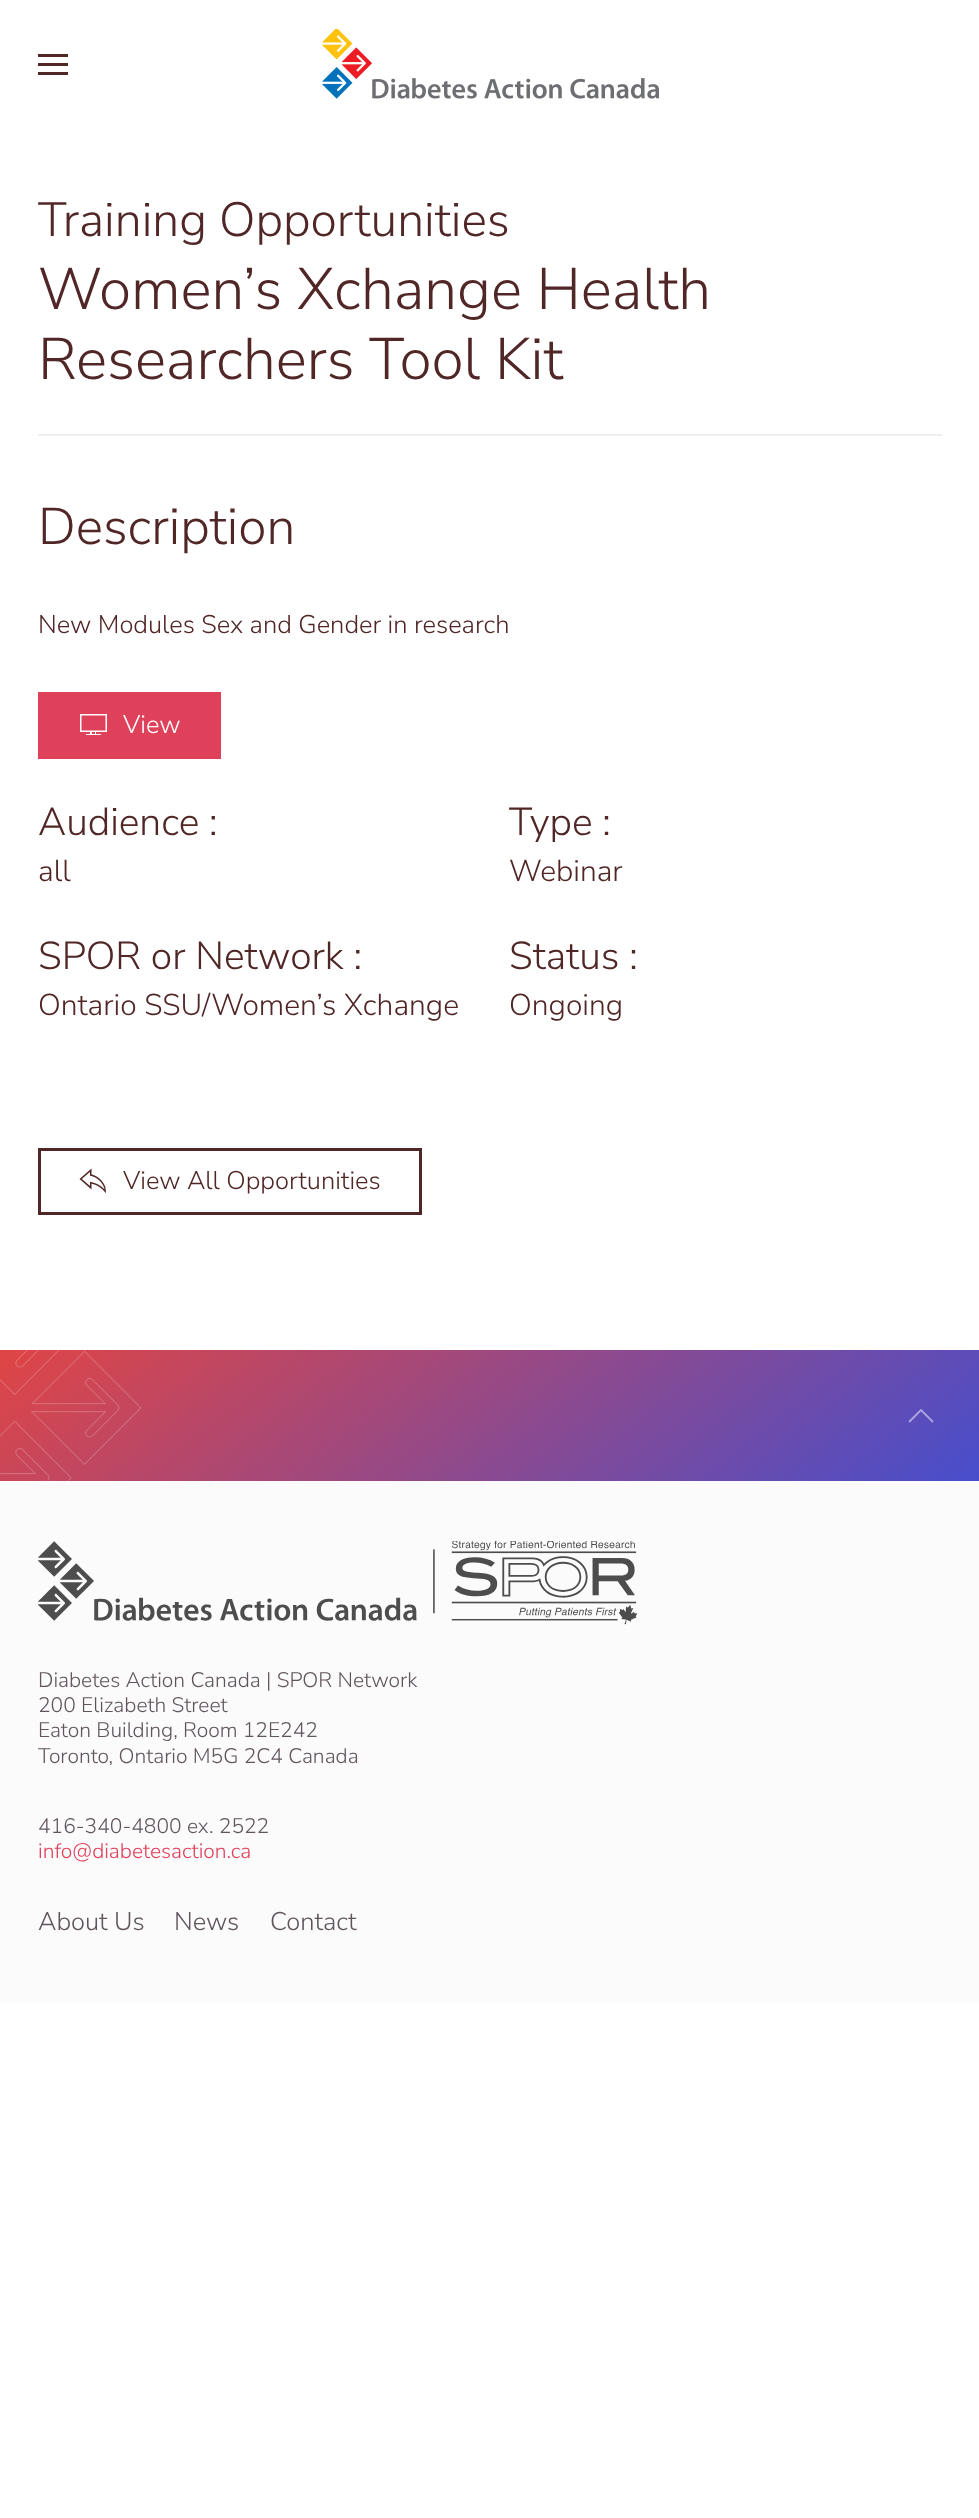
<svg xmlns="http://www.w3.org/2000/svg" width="979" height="2518">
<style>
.a{font:200 48px Nunito Sans;fill:#512626}
.b{font:200 58.6px Nunito Sans;fill:#512626}
.c{font:200 51.5px Nunito Sans;fill:#512626}
.d{font:200 25.5px Nunito Sans;fill:#512626}
.e{font:200 25.5px Nunito Sans;fill:#fff}
.f{font:200 39px Nunito Sans;fill:#512626}
.g{font:200 30px Nunito Sans;fill:#512626}
.h{font:200 21px Nunito Sans;fill:#60555d}
.i{font:200 21px Nunito Sans;fill:#df405a}
.j{font:200 25.5px Nunito Sans;fill:#60555d}
</style>
<defs>
<linearGradient id="g1" gradientUnits="userSpaceOnUse" x1="272" y1="1137" x2="707" y2="1693"><stop offset="0" stop-color="#e04545"/><stop offset="1" stop-color="#474ecc"/></linearGradient>
</defs>
<rect width="100%" height="100%" fill="#fff"/>
<path fill="#512626" d="M38 54h30v3H38z"/>
<path fill="#512626" d="M38 63h30v3H38z"/>
<path fill="#512626" d="M38 72h30v3H38z"/>
<image href="1.png" x="322" y="29" width="337" height="70"/>
<path fill="#eee" d="M38 434h904v2H38z"/>
<path fill="#df405a" d="M38 692h183v67H38z"/>
<path fill="none" stroke="#fff" stroke-width="1.5" d="M80.75 714.75h25.5v16.5H80.75z"/>
<path fill="#fff" d="M90 732h2v3H90z"/>
<path fill="#fff" d="M95 732h1v3H95z"/>
<path fill="#fff" d="M86 734h15v1H86z"/>
<path fill="none" stroke="#512626" stroke-width="3" d="M39.5 1149.5h381v64H39.5z"/>
<image href="2.png" x="79" y="1168" width="27" height="26"/>
<path fill="url(#g1)" d="M0 1350h979v131H0z"/>
<image href="3.png" x="0" y="1350" width="142" height="131"/>
<path fill="none" stroke="#ffffff80" stroke-width="1.8" d="M909 1422l12-12l12 12"/>
<path fill="#fbfbfb" d="M0 1481h979v522H0z"/>
<image href="4.png" x="38" y="1541" width="600" height="84"/>
<text class="a" x="38" y="236">Training Opportunities</text>
<text class="b" x="38" y="309">Women’s Xchange Health</text>
<text class="b" x="38" y="379">Researchers Tool Kit</text>
<text class="c" x="38" y="544">Description</text>
<text class="d" x="38" y="633">New Modules Sex and Gender in research</text>
<text class="e" x="123" y="733">View</text>
<text class="f" x="38" y="835">Audience :</text>
<text class="g" x="38" y="881">all</text>
<text class="f" x="509" y="835">Type :</text>
<text class="g" x="509" y="881">Webinar</text>
<text class="f" x="38" y="969">SPOR or Network :</text>
<text class="g" x="38" y="1015">Ontario SSU/Women’s Xchange</text>
<text class="f" x="509" y="969">Status :</text>
<text class="g" x="509" y="1015">Ongoing</text>
<text class="d" x="123" y="1189">View All Opportunities</text>
<text class="h" x="38" y="1687">Diabetes Action Canada | SPOR Network</text>
<text class="h" x="38" y="1712">200 Elizabeth Street</text>
<text class="h" x="38" y="1737">Eaton Building, Room 12E242</text>
<text class="h" x="38" y="1763">Toronto, Ontario M5G 2C4 Canada</text>
<text class="h" x="38" y="1833">416-340-4800 ex. 2522</text>
<text class="i" x="38" y="1858">info@diabetesaction.ca</text>
<text class="j" x="38" y="1930">About Us</text>
<text class="j" x="174" y="1930">News</text>
<text class="j" x="270" y="1930">Contact</text>
</svg>
